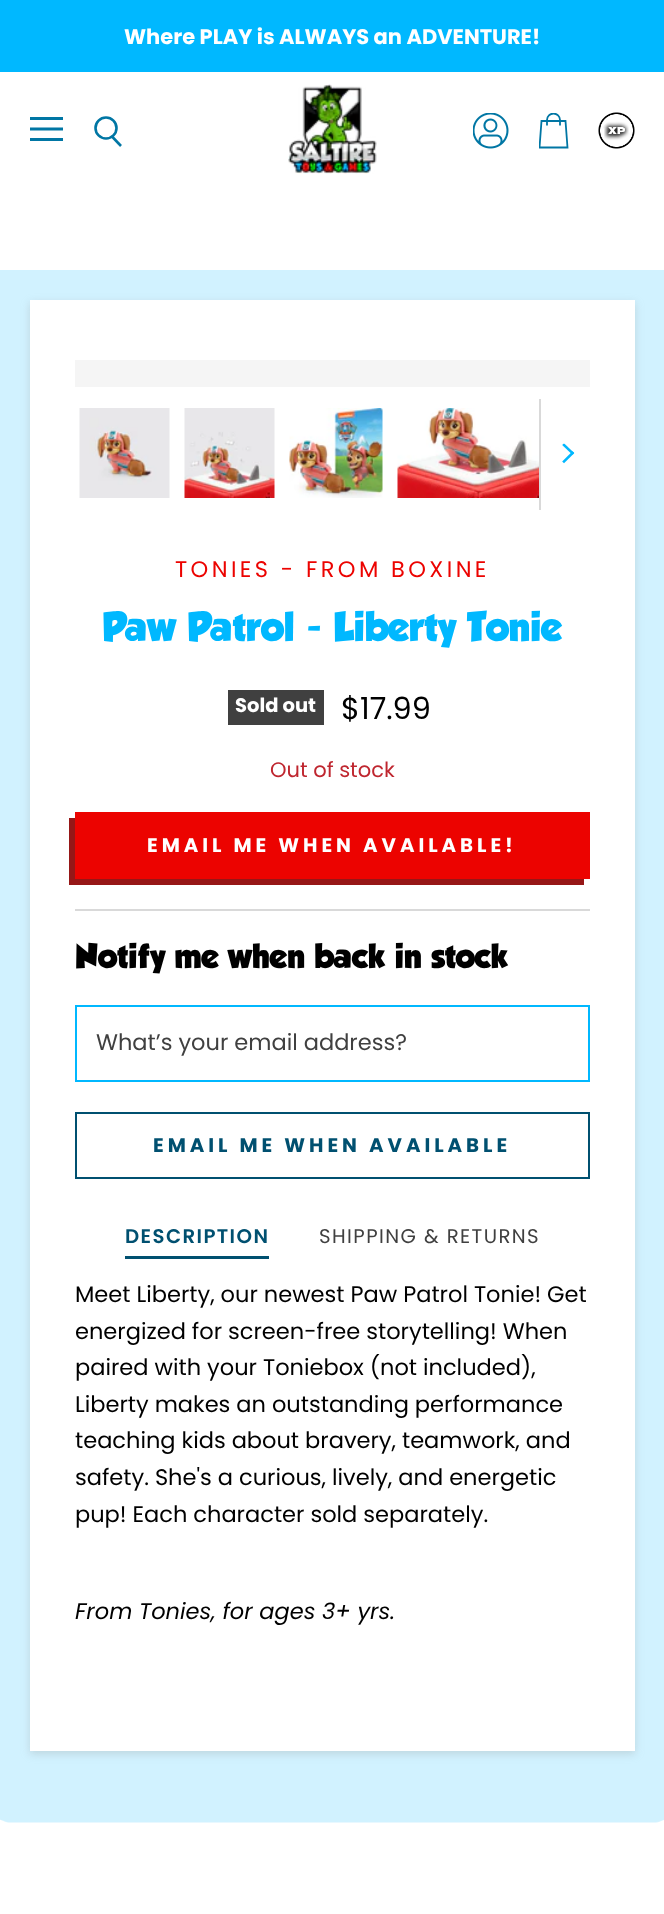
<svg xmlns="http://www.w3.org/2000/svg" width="664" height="1914">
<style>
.a{font:bold 21px Poppins;fill:#fff}
.b{font:22.5px Poppins;letter-spacing:3.4px;fill:#ec0300}
.c{font:bold 36.5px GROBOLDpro;fill:#00b8ff}
.d{font:bold 19.5px Poppins;fill:#fff}
.e{font:30.4px Poppins;fill:#000}
.f{font:21px Poppins;fill:#bf262f}
.g{font:bold 19.75px Poppins;letter-spacing:3.95px;fill:#fff}
.h{font:bold 30.4px GROBOLDpro;fill:#000}
.i{font:22.5px Poppins;fill:#404040}
.j{font:bold 19.75px Poppins;letter-spacing:3.95px;fill:#005070}
.k{font:600 19.75px Poppins;letter-spacing:1.4px;fill:#005070}
.l{font:19.75px Poppins;letter-spacing:1.4px;fill:#404040}
.m{font:22.5px Poppins;fill:#000}
.n{font:italic 22.5px Poppins;fill:#000}
</style>
<defs>
<clipPath id="clip1"><path d="M539 113h30v36H539z"/></clipPath>
<clipPath id="clip2"><path d="M562 464.5v-21h12v21z"/></clipPath>
</defs>
<rect width="100%" height="100%" fill="#fff"/>
<path fill="#00b8ff" d="M0 0h664v72H0z"/>
<path fill="#0076a4" d="M30 117h33v3H30z"/>
<path fill="none" stroke="#0076a4" stroke-width="3" stroke-linecap="square" stroke-linejoin="round" d="M61.5 129h-30"/>
<path fill="#0076a4" d="M30 138h33v3H30z"/>
<path fill="none" stroke="#0076a4" stroke-width="2.6" d="M121 146l-9-9.5"/>
<circle fill="none" stroke="#0076a4" stroke-width="2.6" cx="106" cy="128" r="10.5"/>
<image href="1.png" x="288" y="84" width="89" height="90"/>
<image href="2.png" x="473" y="113" width="36" height="36"/>
<g clip-path="url(#clip1)">
<path fill="none" stroke="#0076a4" stroke-width="1.8" d="M567.5 147.5h-28l2-26.5h24zm-7.5-22v-5.5c0-3.5-3-6.5-6.5-6.5c-3.5 0-6.5 3-6.5 6.5v5.5"/>
</g>
<image href="3.png" x="598" y="112" width="37" height="37"/>
<path fill="#d1f2ff" d="M0 270h664v1511H0z"/>
<path fill="#979f9e57" filter="blur(4.5px)" d="M30 303h605v1451H30z"/>
<path fill="#fff" d="M30 300h605v1451H30z"/>
<path fill="#f5f5f5" d="M75 360h515v27H75z"/>
<image href="4.png" x="79" y="408" width="91" height="90"/>
<image href="5.png" x="184" y="408" width="91" height="90"/>
<image href="6.png" x="289" y="408" width="94" height="90"/>
<image href="7.png" x="397" y="408" width="142" height="90"/>
<path fill="#d9d9d9" d="M539 399h2v111H539z"/>
<g clip-path="url(#clip2)">
<path fill="none" stroke="#00b8ff" stroke-width="2.6" stroke-linecap="square" d="M572.5 453l-8.5-8"/>
</g>
<path fill="none" stroke="#00b8ff" stroke-width="2.6" stroke-linecap="square" d="M572.5 453l-8.5 8.5"/>
<path fill="#404040" d="M228 690h96v35H228z"/>
<path fill="#961717" d="M69 818v67h515v-6h-509v-61z"/>
<path fill="#ec0300" d="M75 812h515v67H75z"/>
<path fill="#d9d9d9" d="M75 909h515v2H75z"/>
<path fill="none" stroke="#00b8ff" stroke-width="2" d="M76 1006h513v75H76z"/>
<path fill="none" stroke="#005070" stroke-width="2" d="M76 1113h513v65H76z"/>
<path fill="#005070" d="M125 1256h144v3H125z"/>
<image href="8.png" x="0" y="1781" width="664" height="42"/>
<text class="a" x="124" y="44">Where PLAY is ALWAYS an ADVENTURE!</text>
<text class="b" x="175" y="577">TONIES - FROM BOXINE</text>
<text class="c" x="102" y="641">Paw Patrol - Liberty Tonie</text>
<text class="d" x="235" y="712">Sold out</text>
<text class="e" x="341" y="719">$17.99</text>
<text class="f" x="270" y="777">Out of stock</text>
<text class="g" x="147" y="852">EMAIL ME WHEN AVAILABLE!</text>
<text class="h" x="75" y="968">Notify me when back in stock</text>
<text class="i" x="96" y="1050">What’s your email address?</text>
<text class="j" x="153" y="1152">EMAIL ME WHEN AVAILABLE</text>
<text class="k" x="125" y="1243">DESCRIPTION</text>
<text class="l" x="319" y="1243">SHIPPING &amp; RETURNS</text>
<text class="m" x="75" y="1302">Meet Liberty, our newest Paw Patrol Tonie! Get</text>
<text class="m" x="75" y="1339">energized for screen-free storytelling! When</text>
<text class="m" x="75" y="1375">paired with your Toniebox (not included),</text>
<text class="m" x="75" y="1412">Liberty makes an outstanding performance</text>
<text class="m" x="75" y="1448">teaching kids about bravery, teamwork, and</text>
<text class="m" x="75" y="1485">safety. She's a curious, lively, and energetic</text>
<text class="m" x="75" y="1522">pup! Each character sold separately.</text>
<text class="n" x="75" y="1619">From Tonies, for ages 3+ yrs.</text>
</svg>
